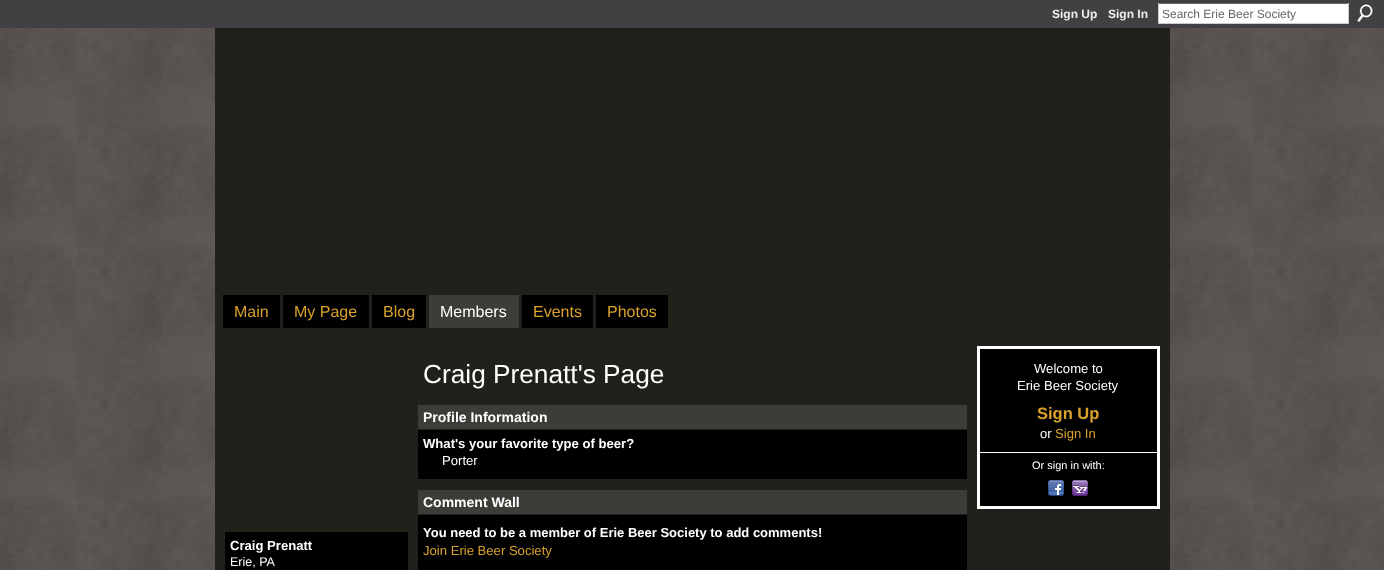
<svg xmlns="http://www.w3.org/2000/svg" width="1384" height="570">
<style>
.a{font:bold 12px Liberation Sans;fill:#eee}
.b{font:12px Liberation Sans;fill:#666}
.c{font:16px Liberation Sans;fill:#daa22c}
.d{font:16px Liberation Sans;fill:#fff}
.e{font:bold 13.1px Liberation Sans;fill:#fff}
.f{font:12.5px Liberation Sans;fill:#fff}
.g{font:26.25px Liberation Sans;fill:#fff}
.h{font:bold 14px Liberation Sans;fill:#fff}
.i{font:13.1px Liberation Sans;fill:#fff}
.j{font:bold 13px Liberation Sans;fill:#fff}
.k{font:13.1px Liberation Sans;fill:#daa22c}
.l{font:bold 16.5px Liberation Sans;fill:#daa22c}
.m{font:11px Liberation Sans;fill:#fff}
</style>
<rect width="100%" height="100%" fill="#fff"/>
<image href="1.png" x="0" y="28" width="1384" height="542"/>
<path fill="#414143" d="M0 0h1384v28H0z"/>
<path fill="#fff" d="M1159 4h189v19H1159z"/>
<path fill="#666" d="M1158 3h191v1H1158z"/>
<path fill="#ccc" d="M1348 3h1v21H1348z"/>
<path fill="#ccc" d="M1158 23h191v1H1158z"/>
<path fill="#ccc" d="M1158 3h1v21H1158z"/>
<image href="2.png" x="1357" y="4" width="16" height="18"/>
<path fill="#21201a" d="M215 28h955v542H215z"/>
<path fill="#000" d="M223 295h57v33H223z"/>
<path fill="#000" d="M283 295h86v33H283z"/>
<path fill="#000" d="M372 295h54v33H372z"/>
<path fill="#3d3c38" d="M429 295h90v33H429z"/>
<path fill="#000" d="M522 295h71v33H522z"/>
<path fill="#000" d="M596 295h72v33H596z"/>
<path fill="#000" d="M225 532h183v38H225z"/>
<path fill="#3d3c38" d="M418 405h549v24H418z"/>
<path fill="#000" d="M418 430h549v49H418z"/>
<path fill="#3d3c38" d="M418 490h549v24H418z"/>
<path fill="#000" d="M418 515h549v55H418z"/>
<path fill="#000" stroke="#fff" stroke-width="3" d="M978.5 347.5h180v160H978.5z"/>
<path fill="#fff" d="M980 452h177v1H980z"/>
<image href="3.png" x="1048" y="480" width="16" height="16"/>
<image href="4.png" x="1072" y="480" width="16" height="16"/>
<text class="a" x="1052" y="18">Sign Up</text>
<text class="a" x="1108" y="18">Sign In</text>
<text class="b" x="1162" y="18">Search Erie Beer Society</text>
<text class="c" x="234" y="317">Main</text>
<text class="c" x="294" y="317">My Page</text>
<text class="c" x="383" y="317">Blog</text>
<text class="d" x="440" y="317">Members</text>
<text class="c" x="533" y="317">Events</text>
<text class="c" x="607" y="317">Photos</text>
<text class="e" x="230" y="550">Craig Prenatt</text>
<text class="f" x="230" y="566">Erie, PA</text>
<text class="g" x="423" y="383">Craig Prenatt's Page</text>
<text class="h" x="423" y="422">Profile Information</text>
<text class="e" x="423" y="448">What's your favorite type of beer?</text>
<text class="i" x="442" y="465">Porter</text>
<text class="h" x="423" y="507">Comment Wall</text>
<text class="j" x="423" y="537">You need to be a member of Erie Beer Society to add comments!</text>
<text class="k" x="423" y="555">Join Erie Beer Society</text>
<text class="i" x="1034" y="373">Welcome to</text>
<text class="i" x="1017" y="390">Erie Beer Society</text>
<text class="l" x="1037" y="419">Sign Up</text>
<text class="i" x="1040" y="438">or</text>
<text class="k" x="1055" y="438">Sign In</text>
<text class="m" x="1032" y="469">Or sign in with:</text>
</svg>
